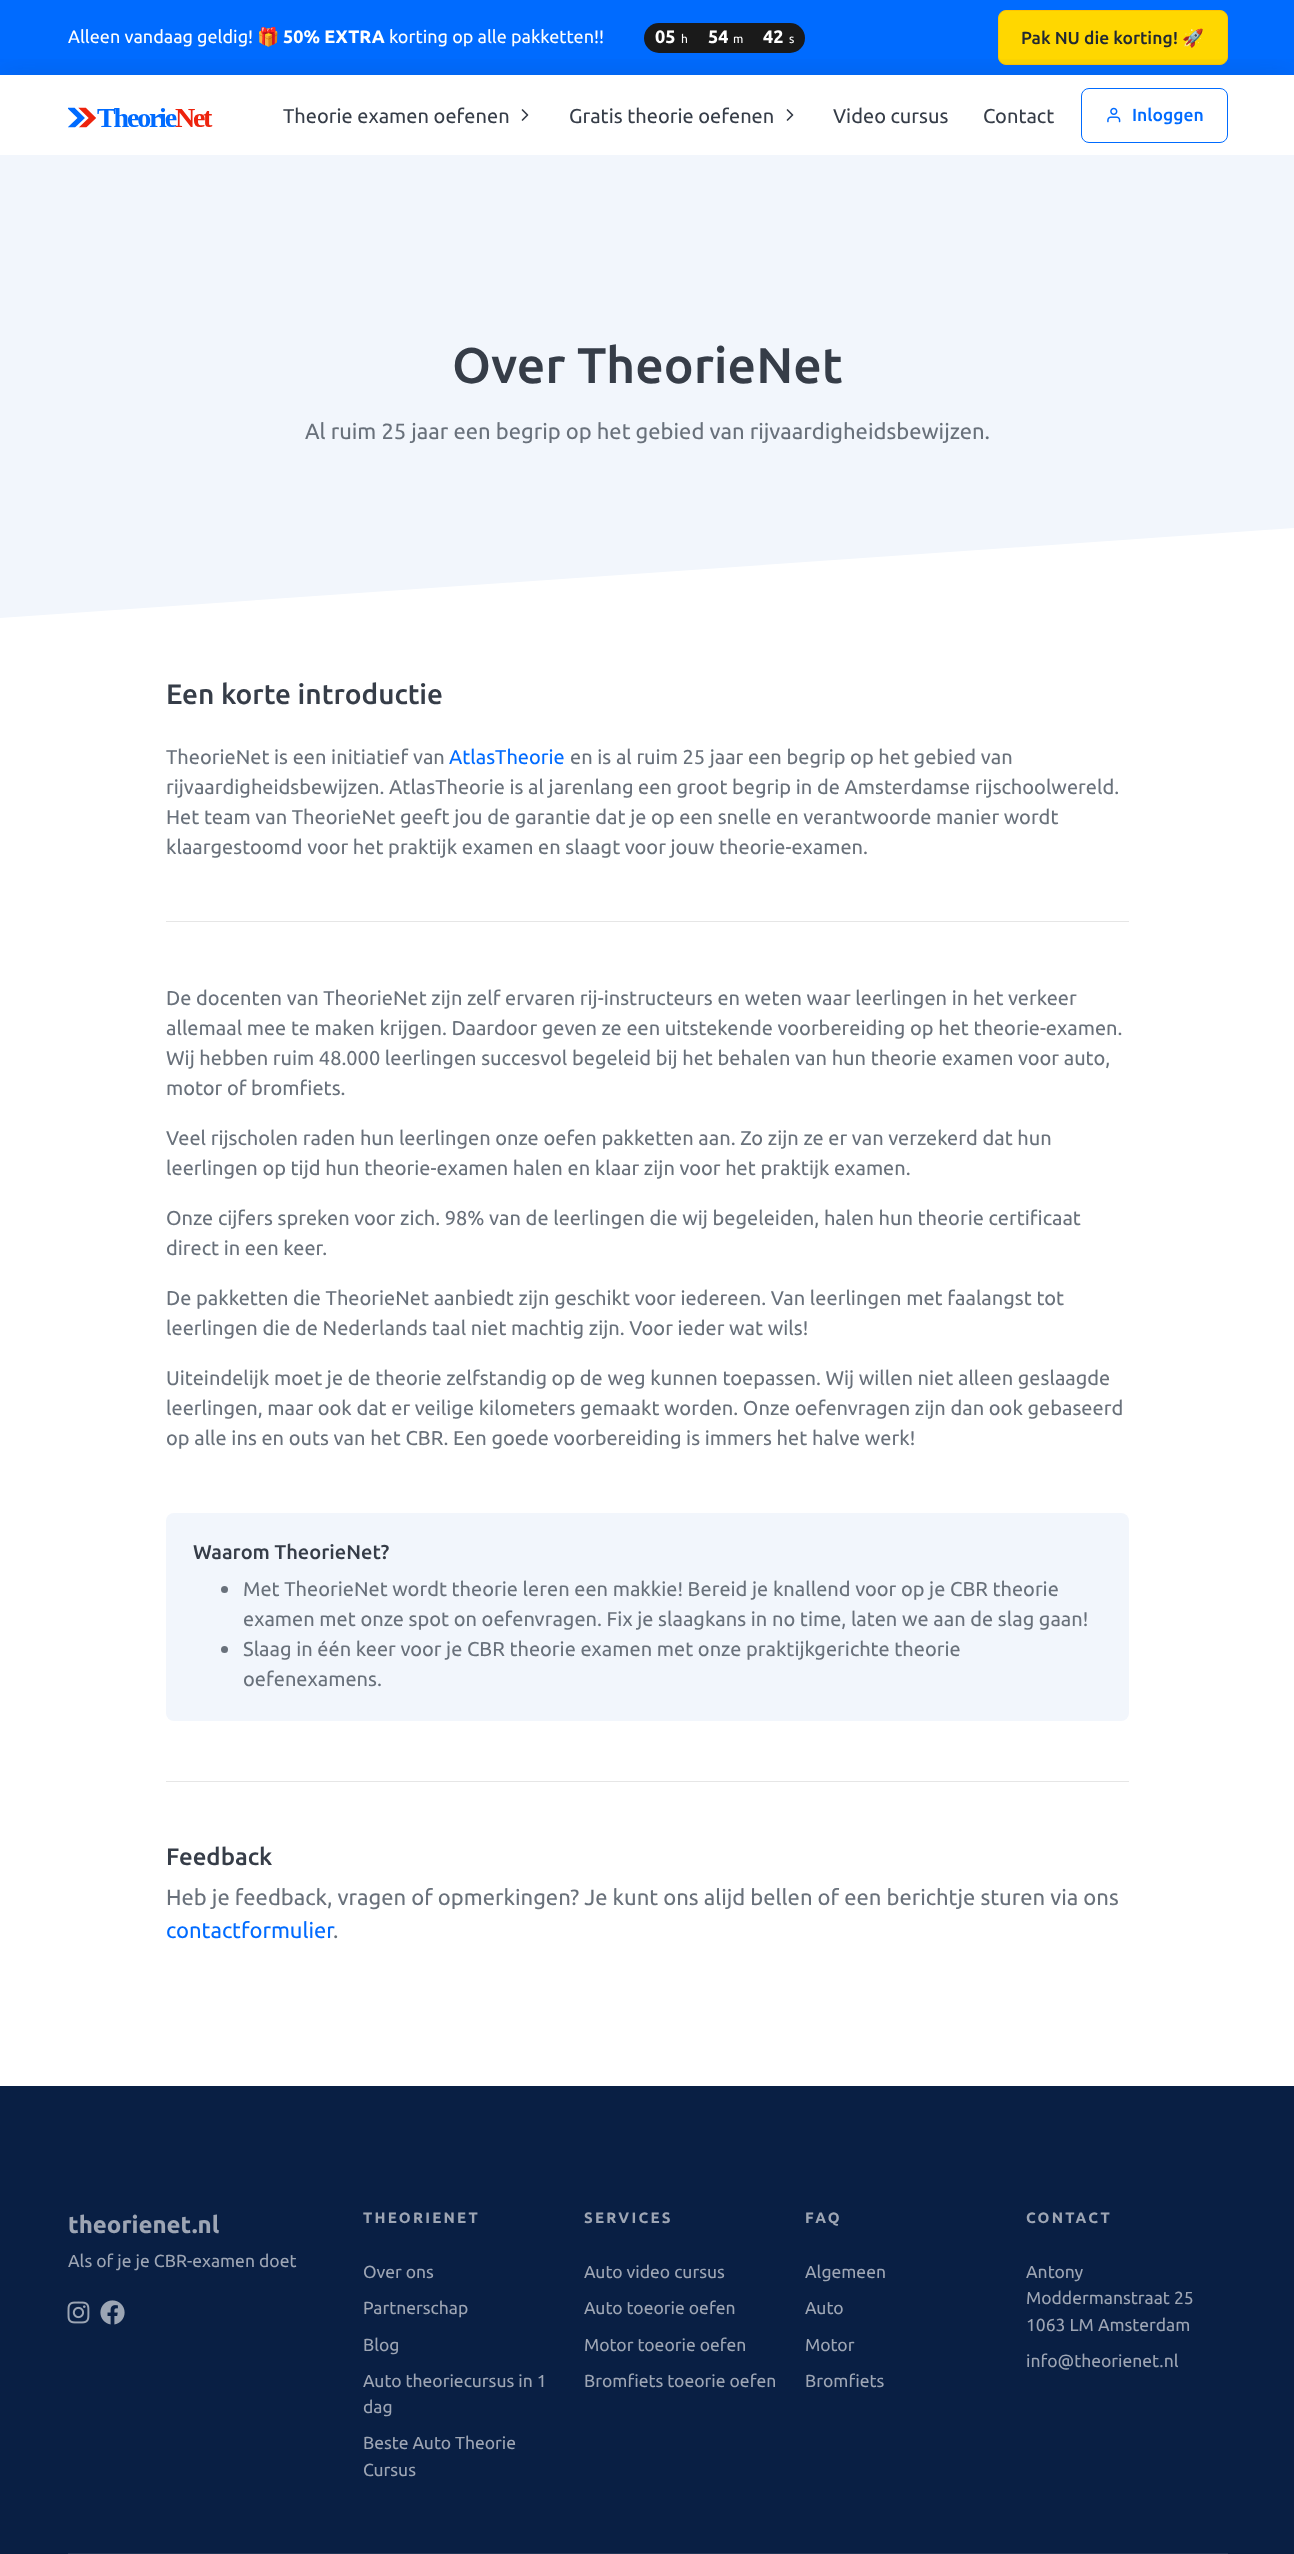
<svg xmlns="http://www.w3.org/2000/svg" width="1294" height="2554">
<style>
.a{font:18px Ubuntu;fill:#fff}
.b{font:bold 18px Noto Color Emoji;fill:#fff}
.c{font:bold 18px Ubuntu;fill:#fff}
.d{font:12px Ubuntu;fill:#fff}
.e{font:500 17.5px Ubuntu;fill:#212933}
.f{font:17.5px Noto Color Emoji;fill:#212933}
.g{font:20px Ubuntu;fill:#363d48}
.h{font:500 17.5px Ubuntu;fill:#006bff}
.i{font:500 50px Ubuntu;fill:#363d48}
.j{font:22px Ubuntu;fill:#69717b}
.k{font:500 28px Ubuntu;fill:#363d48}
.l{font:20px Ubuntu;fill:#69717b}
.m{font:20px Ubuntu;fill:#006bff}
.n{font:500 20px Ubuntu;fill:#363d48}
.o{font:500 24px Ubuntu;fill:#363d48}
.p{font:22px Ubuntu;fill:#006bff}
.q{font:bold 24px Ubuntu;fill:#9da5b4}
.r{font:17.5px Ubuntu;fill:#9da5b4}
.s{font:bold 15px Ubuntu;letter-spacing:2.25px;fill:#9da5b4}
</style>
<defs>
<clipPath id="clip1"><path d="M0 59h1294v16H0z"/></clipPath>
</defs>
<rect width="100%" height="100%" fill="#fff"/>
<path fill="#006bff" d="M0 0h1294v75H0z"/>
<rect fill="#1a1a1a" x="644" y="23" width="161" height="30" rx="15"/>
<rect fill="#ffd700" stroke="#ffc400" x="998.5" y="10.5" width="229" height="54" rx="7.5"/>
<g clip-path="url(#clip1)">
<path fill="#21293326" filter="blur(17.5px)" d="M0 78h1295v80H0z"/>
</g>
<image href="1.png" x="68" y="107" width="145" height="21"/>
<path fill="none" stroke="#363d48" stroke-width="1.7" stroke-linecap="round" stroke-linejoin="round" d="M522.5 120l5-5l-5-5"/>
<path fill="none" stroke="#363d48" stroke-width="1.7" stroke-linecap="round" stroke-linejoin="round" d="M787.5 120l5-5l-5-5"/>
<rect fill="none" stroke="#006bff" x="1081.5" y="88.5" width="146" height="54" rx="7.5"/>
<image href="2.png" x="1107" y="107" width="14" height="16"/>
<path fill="#f2f6fc" d="M0 155h1294v463H0z"/>
<path fill="#fff" d="M0 618l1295-90v90z"/>
<path fill="#e6e6e6" d="M166 921h963v1H166z"/>
<rect fill="#f2f6fc" x="166" y="1513" width="963" height="208" rx="8"/>
<circle fill="#69717b" cx="224.5" cy="1589.5" r="3.5"/>
<circle fill="#69717b" cx="224.5" cy="1649.5" r="3.5"/>
<path fill="#e6e6e6" d="M166 1781h963v1H166z"/>
<path fill="#091f44" d="M0 2086h1294v468H0z"/>
<image href="3.png" x="67" y="2301" width="23" height="23"/>
<image href="4.png" x="100" y="2300" width="25" height="25"/>
<path fill="#223557" d="M68 2553h1160v1H68z"/>
<text class="a" x="68" y="43">Alleen vandaag geldig!</text>
<text class="b" x="257" y="43">🎁</text>
<text class="c" x="283" y="43">50% EXTRA</text>
<text class="a" x="389" y="43">korting op alle pakketten!!️</text>
<text class="c" x="655" y="43">05</text>
<text class="d" x="681" y="43">h</text>
<text class="c" x="708" y="43">54</text>
<text class="d" x="733" y="43">m</text>
<text class="c" x="763" y="43">42</text>
<text class="d" x="789" y="43">s</text>
<text class="e" x="1021" y="44">Pak NU die korting!</text>
<text class="f" x="1182" y="44">🚀</text>
<text class="g" x="283" y="123">Theorie examen oefenen</text>
<text class="g" x="569" y="123">Gratis theorie oefenen</text>
<text class="g" x="833" y="123">Video cursus</text>
<text class="g" x="983" y="123">Contact</text>
<text class="h" x="1132" y="121">Inloggen</text>
<text class="i" x="452" y="383">Over TheorieNet</text>
<text class="j" x="305" y="439">Al ruim 25 jaar een begrip op het gebied van rijvaardigheidsbewijzen.</text>
<text class="k" x="166" y="704">Een korte introductie</text>
<text class="l" x="166" y="764">TheorieNet is een initiatief van</text>
<text class="m" x="449" y="764">AtlasTheorie</text>
<text class="l" x="570" y="764">en is al ruim 25 jaar een begrip op het gebied van</text>
<text class="l" x="166" y="794">rijvaardigheidsbewijzen. AtlasTheorie is al jarenlang een groot begrip in de Amsterdamse rijschoolwereld.</text>
<text class="l" x="166" y="824">Het team van TheorieNet geeft jou de garantie dat je op een snelle en verantwoorde manier wordt</text>
<text class="l" x="166" y="854">klaargestoomd voor het praktijk examen en slaagt voor jouw theorie-examen.</text>
<text class="l" x="166" y="1005">De docenten van TheorieNet zijn zelf ervaren rij-instructeurs en weten waar leerlingen in het verkeer</text>
<text class="l" x="166" y="1035">allemaal mee te maken krijgen. Daardoor geven ze een uitstekende voorbereiding op het theorie-examen.</text>
<text class="l" x="166" y="1065">Wij hebben ruim 48.000 leerlingen succesvol begeleid bij het behalen van hun theorie examen voor auto,</text>
<text class="l" x="166" y="1095">motor of bromfiets.</text>
<text class="l" x="166" y="1145">Veel rijscholen raden hun leerlingen onze oefen pakketten aan. Zo zijn ze er van verzekerd dat hun</text>
<text class="l" x="166" y="1175">leerlingen op tijd hun theorie-examen halen en klaar zijn voor het praktijk examen.</text>
<text class="l" x="166" y="1225">Onze cijfers spreken voor zich. 98% van de leerlingen die wij begeleiden, halen hun theorie certificaat</text>
<text class="l" x="166" y="1255">direct in een keer.</text>
<text class="l" x="166" y="1305">De pakketten die TheorieNet aanbiedt zijn geschikt voor iedereen. Van leerlingen met faalangst tot</text>
<text class="l" x="166" y="1335">leerlingen die de Nederlands taal niet machtig zijn. Voor ieder wat wils!</text>
<text class="l" x="166" y="1385">Uiteindelijk moet je de theorie zelfstandig op de weg kunnen toepassen. Wij willen niet alleen geslaagde</text>
<text class="l" x="166" y="1415">leerlingen, maar ook dat er veilige kilometers gemaakt worden. Onze oefenvragen zijn dan ook gebaseerd</text>
<text class="l" x="166" y="1445">op alle ins en outs van het CBR. Een goede voorbereiding is immers het halve werk!</text>
<text class="n" x="193" y="1559">Waarom TheorieNet?</text>
<text class="l" x="243" y="1596">Met TheorieNet wordt theorie leren een makkie! Bereid je knallend voor op je CBR theorie</text>
<text class="l" x="243" y="1626">examen met onze spot on oefenvragen. Fix je slaagkans in no time, laten we aan de slag gaan!</text>
<text class="l" x="243" y="1656">Slaag in één keer voor je CBR theorie examen met onze praktijkgerichte theorie</text>
<text class="l" x="243" y="1686">oefenexamens.</text>
<text class="o" x="166" y="1865">Feedback</text>
<text class="j" x="166" y="1905">Heb je feedback, vragen of opmerkingen? Je kunt ons alijd bellen of een berichtje sturen via ons</text>
<text class="p" x="166" y="1938">contactformulier</text>
<text class="j" x="333" y="1938">.</text>
<text class="q" x="68" y="2233">theorienet.nl</text>
<text class="r" x="68" y="2267">Als of je je CBR-examen doet</text>
<text class="s" x="363" y="2223">THEORIENET</text>
<text class="r" x="363" y="2278">Over ons</text>
<text class="r" x="363" y="2314">Partnerschap</text>
<text class="r" x="363" y="2351">Blog</text>
<text class="r" x="363" y="2387">Auto theoriecursus in 1</text>
<text class="r" x="363" y="2413">dag</text>
<text class="r" x="363" y="2449">Beste Auto Theorie</text>
<text class="r" x="363" y="2476">Cursus</text>
<text class="s" x="584" y="2223">SERVICES</text>
<text class="r" x="584" y="2278">Auto video cursus</text>
<text class="r" x="584" y="2314">Auto toeorie oefen</text>
<text class="r" x="584" y="2351">Motor toeorie oefen</text>
<text class="r" x="584" y="2387">Bromfiets toeorie oefen</text>
<text class="s" x="805" y="2223">FAQ</text>
<text class="r" x="805" y="2278">Algemeen</text>
<text class="r" x="805" y="2314">Auto</text>
<text class="r" x="805" y="2351">Motor</text>
<text class="r" x="805" y="2387">Bromfiets</text>
<text class="s" x="1026" y="2223">CONTACT</text>
<text class="r" x="1026" y="2278">Antony</text>
<text class="r" x="1026" y="2304">Moddermanstraat 25</text>
<text class="r" x="1026" y="2331">1063 LM Amsterdam</text>
<text class="r" x="1026" y="2367">info@theorienet.nl</text>
</svg>
